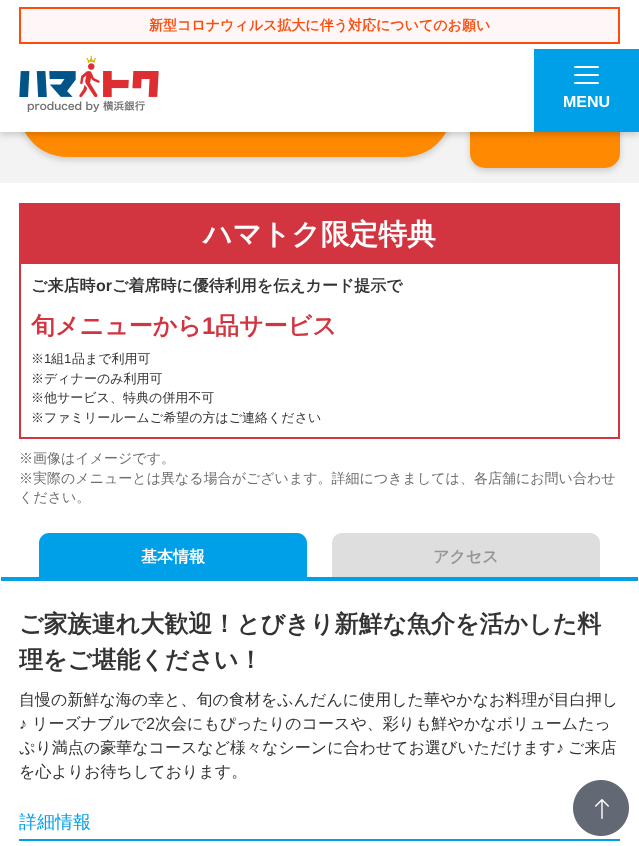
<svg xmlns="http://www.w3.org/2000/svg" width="639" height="846">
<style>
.a{font:bold 14px WenQuanYi Zen Hei;fill:#fd4d0d}
.b{font:bold 16px Liberation Sans;fill:#fff}
.c{font:bold 28.75px WenQuanYi Zen Hei;fill:#fff}
.d{font:bold 16px WenQuanYi Zen Hei;fill:#333}
.e{font:bold 16px Liberation Sans;fill:#333}
.f{font:bold 24px WenQuanYi Zen Hei;fill:#d23440}
.g{font:bold 24px Liberation Sans;fill:#d23440}
.h{font:500 13px WenQuanYi Zen Hei;fill:#333}
.i{font:13px Liberation Sans;fill:#333}
.j{font:500 14px WenQuanYi Zen Hei;fill:#6f6f6f}
.k{font:bold 16px WenQuanYi Zen Hei;fill:#fff}
.l{font:bold 16px WenQuanYi Zen Hei;fill:#959595}
.m{font:bold 24px WenQuanYi Zen Hei;fill:#333}
.n{font:500 16px WenQuanYi Zen Hei;fill:#333}
.o{font:16px Liberation Sans;fill:#333}
.p{font:500 18px WenQuanYi Zen Hei;fill:#00a0e9}
</style>
<rect width="100%" height="100%" fill="#fff"/>
<path fill="#f3f3f3" d="M0 132h639v51H0z"/>
<rect fill="#00000029" filter="blur(3px)" x="19" y="64" width="433" height="96" rx="48"/>
<rect fill="#ff8900" x="19" y="61" width="433" height="96" rx="48"/>
<rect fill="#00000029" filter="blur(3px)" x="470" y="53" width="150" height="118" rx="15"/>
<rect fill="#ff8900" x="470" y="50" width="150" height="118" rx="15"/>
<path fill="#00000029" filter="blur(3px)" d="M0 3h639v132H0z"/>
<path fill="#fff" d="M0 0h639v132H0z"/>
<path fill="#fff7f7" stroke="#fd4d0d" stroke-width="2" d="M20 8h599v35H20z"/>
<image href="1.png" x="19" y="56" width="140" height="56"/>
<path fill="#00a0e9" d="M534 49h105v83H534z"/>
<rect fill="#fff" x="574" y="66" width="25" height="2" rx="1"/>
<rect fill="#fff" x="574" y="74" width="25" height="2" rx="1"/>
<rect fill="#fff" x="574" y="82" width="25" height="2" rx="1"/>
<path fill="none" stroke="#d23440" stroke-width="2" d="M20 204h599v234H20z"/>
<path fill="#d23440" d="M21 205h597v59H21z"/>
<path fill="#00a0e9" d="M1 577h637v4H1z"/>
<path fill="#00a0e9" d="M49 533h248c5.5 0 10 4.5 10 10v34h-268v-34c0-5.5 4.5-10 10-10z"/>
<path fill="#dedede" d="M342 533h248c5.5 0 10 4.5 10 10v34h-268v-34c0-5.5 4.5-10 10-10z"/>
<path fill="#00a0e9" d="M19 839h601v2H19z"/>
<image href="2.png" x="573" y="780" width="56" height="56"/>
<text class="a" x="149" y="30">新型コロナウィルス拡大に伴う対応についてのお願い</text>
<text class="b" x="563" y="107">MENU</text>
<text class="c" x="203" y="244">ハマトク限定特典</text>
<text class="d" x="31" y="291">ご来店時</text>
<text class="e" x="96" y="291">or</text>
<text class="d" x="112" y="291">ご着席時に優待利用を伝えカード提示で</text>
<text class="f" x="31" y="334">旬メニューから</text>
<text class="g" x="202" y="334">1</text>
<text class="f" x="215" y="334">品サービス</text>
<text class="h" x="31" y="363">※</text>
<text class="i" x="44" y="363">1</text>
<text class="h" x="51" y="363">組</text>
<text class="i" x="64" y="363">1</text>
<text class="h" x="72" y="363">品まで利用可</text>
<text class="h" x="31" y="383">※ディナーのみ利用可</text>
<text class="h" x="31" y="402">※他サービス、特典の併用不可</text>
<text class="h" x="31" y="422">※ファミリールームご希望の方はご連絡ください</text>
<text class="j" x="19" y="463">※画像はイメージです。</text>
<text class="j" x="19" y="483">※実際のメニューとは異なる場合がございます。詳細につきましては、各店舗にお問い合わせ</text>
<text class="j" x="19" y="502">ください。</text>
<text class="k" x="141" y="562">基本情報</text>
<text class="l" x="433" y="562">アクセス</text>
<text class="m" x="19" y="632">ご家族連れ大歓迎！とびきり新鮮な魚介を活かした料</text>
<text class="m" x="19" y="668">理をご堪能ください！</text>
<text class="n" x="19" y="705">自慢の新鮮な海の幸と、旬の食材をふんだんに使用した華やかなお料理が目白押し</text>
<text class="o" x="19" y="729">♪</text>
<text class="n" x="32" y="729">リーズナブルで</text>
<text class="o" x="146" y="729">2</text>
<text class="n" x="155" y="729">次会にもぴったりのコースや、彩りも鮮やかなボリュームたっ</text>
<text class="n" x="19" y="753">ぷり満点の豪華なコースなど様々なシーンに合わせてお選びいただけます</text>
<text class="o" x="556" y="753">♪</text>
<text class="n" x="568" y="753">ご来店</text>
<text class="n" x="19" y="777">を心よりお待ちしております。</text>
<text class="p" x="19" y="828">詳細情報</text>
</svg>
